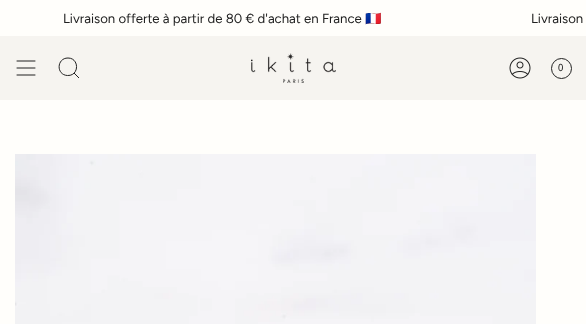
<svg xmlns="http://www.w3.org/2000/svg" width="586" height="324">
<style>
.a{font:13.2px Figtree;fill:#212121}
.b{font:13.2px Noto Color Emoji;fill:#212121}
.c{font:10px Almarai;fill:#212121}
</style>
<rect width="100%" height="100%" fill="#fffefb"/>
<path fill="#f6f4f0" d="M0 36h586v64H0z"/>
<path fill="none" stroke="#212121" stroke-linecap="round" stroke-linejoin="round" d="M17 61h18m-18 7h18m-18 7h18"/>
<path fill="none" stroke="#212121" d="M68 58c11.5 0 11.5 18-.5 17.5c-11.5-.5-11-17.5 .5-17.5zm6 15l5 5"/>
<image href="1.png" x="251" y="53" width="85" height="30"/>
<image href="2.png" x="509" y="57" width="22" height="22"/>
<circle fill="none" stroke="#212121" cx="561.5" cy="68.5" r="10"/>
<image href="3.png" x="15" y="154" width="521" height="170"/>
<text class="a" x="63" y="23">Livraison offerte à partir de 80 € d'achat en France</text>
<text class="b" x="365" y="23">🇫🇷</text>
<text class="a" x="531" y="23">Livraison</text>
<text class="c" x="558" y="71">0</text>
</svg>
